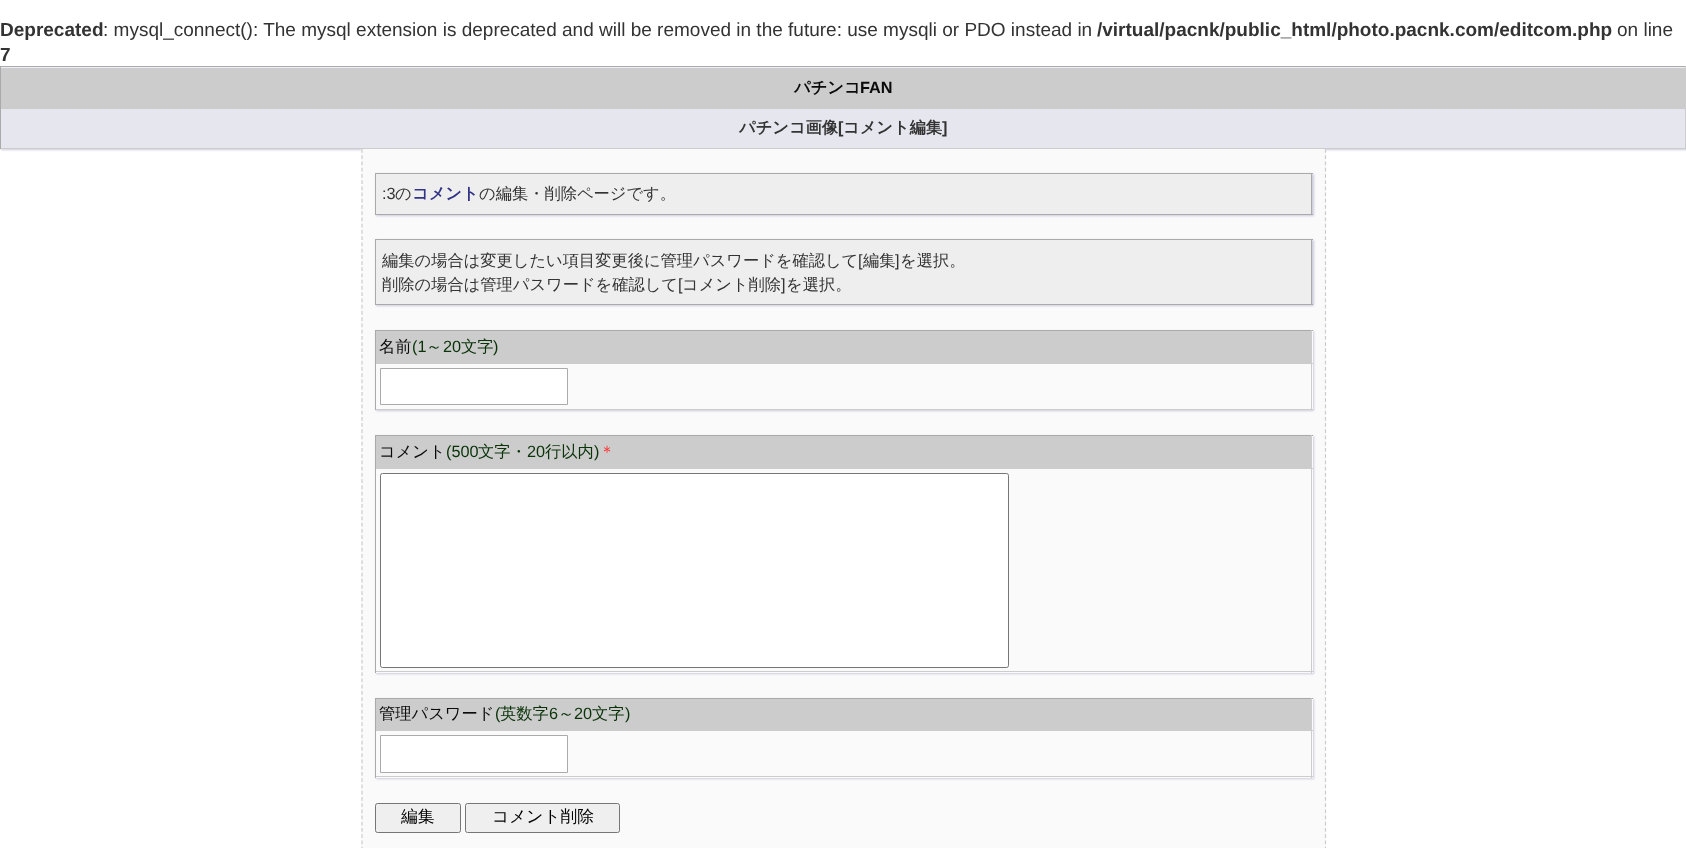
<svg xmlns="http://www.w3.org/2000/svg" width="1686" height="848">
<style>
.a{font:bold 19px Liberation Sans;fill:#333}
.b{font:19px Liberation Sans;fill:#333}
.c{font:bold 16.25px WenQuanYi Zen Hei;fill:#0a0a0a}
.d{font:bold 16.25px Liberation Sans;fill:#0a0a0a}
.e{font:bold 16.25px WenQuanYi Zen Hei;fill:#333}
.f{font:bold 16.25px Liberation Sans;fill:#333}
.g{font:16.25px Liberation Sans;fill:#333}
.h{font:500 16.25px WenQuanYi Zen Hei;fill:#333}
.i{font:bold 16.25px WenQuanYi Zen Hei;fill:#338}
.j{font:500 16.25px WenQuanYi Zen Hei;fill:#0a0a0a}
.k{font:16.25px Liberation Sans;fill:#0a330a}
.l{font:500 16.25px WenQuanYi Zen Hei;fill:#0a330a}
.m{font:500 16.25px WenQuanYi Zen Hei;fill:#f33}
.n{font:500 16.75px WenQuanYi Zen Hei;fill:#000}
</style>
<defs>
<clipPath id="clip1"><path d="M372 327h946v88h-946zm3 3h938v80h-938z" clip-rule="evenodd"/></clipPath>
<clipPath id="clip2"><path d="M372 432h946v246h-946zm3 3h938v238h-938z" clip-rule="evenodd"/></clipPath>
<clipPath id="clip3"><path d="M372 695h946v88h-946zm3 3h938v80h-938z" clip-rule="evenodd"/></clipPath>
</defs>
<rect width="100%" height="100%" fill="#fff"/>
<path fill="#ccd" filter="blur(1px)" d="M1 68h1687v82H1z"/>
<path fill="#aaa" d="M0 66h1686v1H0z"/>
<path fill="#ccc" d="M1 68h1684v40H1z"/>
<path fill="#ccc" d="M1685 66h1v83H1685z"/>
<path fill="#ccc" d="M0 148h1686v1H0z"/>
<path fill="#aaa" d="M0 108h1v41H0z"/>
<path fill="#ccc" d="M0 108h1686v1H0z"/>
<path fill="#aaa" d="M0 66h1v43H0z"/>
<path fill="#e6e6ee" d="M1 109h1684v39H1z"/>
<path fill="#fafafa" d="M361 149h965v699H361z"/>
<path fill="none" stroke="#ccc" stroke-width="1.2" stroke-dasharray="3.75 2.48" d="M1325.5 149v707"/>
<path fill="none" stroke="#ccc" stroke-width="1.2" stroke-dasharray="3.75 2.48" d="M362 149v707"/>
<path fill="#ccd" filter="blur(1px)" d="M376 174h938v42H376z"/>
<path fill="#aaa" d="M375 173h938v1H375z"/>
<path fill="#aaa" d="M1311 173h1v42H1311z"/>
<path fill="#aaa" d="M375 214h938v1H375z"/>
<path fill="#aaa" d="M375 173h1v42H375z"/>
<path fill="#eee" d="M376 174h935v40H376z"/>
<path fill="#ccd" filter="blur(1px)" d="M376 240h938v66H376z"/>
<path fill="#aaa" d="M375 239h938v1H375z"/>
<path fill="#aaa" d="M1311 239h1v66H1311z"/>
<path fill="#aaa" d="M375 304h938v1H375z"/>
<path fill="#aaa" d="M375 239h1v66H375z"/>
<path fill="#eee" d="M376 240h935v64H376z"/>
<g clip-path="url(#clip1)">
<path fill="#ccd" filter="blur(1px)" d="M376 331h938v80H376z"/>
</g>
<path fill="#aaa" d="M375 330h938v1H375z"/>
<path fill="#ccc" d="M1311 330h1v80H1311z"/>
<path fill="#ccc" d="M375 409h938v1H375z"/>
<path fill="#aaa" d="M375 363h1v47H375z"/>
<path fill="#fff" stroke="#aaa" d="M380.5 368.5h187v36H380.5z"/>
<path fill="#ccc" d="M376 331h935v32H376z"/>
<path fill="#ccc" d="M375 363h938v1H375z"/>
<path fill="#aaa" d="M375 330h1v34H375z"/>
<g clip-path="url(#clip2)">
<path fill="#ccd" filter="blur(1px)" d="M376 436h938v238H376z"/>
</g>
<path fill="#aaa" d="M375 435h938v1H375z"/>
<path fill="#ccc" d="M1311 435h1v238H1311z"/>
<path fill="#ccc" d="M375 671h938v1H375z"/>
<path fill="#aaa" d="M375 468h1v205H375z"/>
<rect fill="#fff" stroke="#767676" x="380.5" y="473.5" width="628" height="194" rx="2"/>
<path fill="#ccc" d="M376 436h935v32H376z"/>
<path fill="#ccc" d="M375 468h938v1H375z"/>
<path fill="#aaa" d="M375 435h1v34H375z"/>
<g clip-path="url(#clip3)">
<path fill="#ccd" filter="blur(1px)" d="M376 699h938v80H376z"/>
</g>
<path fill="#aaa" d="M375 698h938v1H375z"/>
<path fill="#ccc" d="M1311 698h1v80H1311z"/>
<path fill="#ccc" d="M375 776h938v1H375z"/>
<path fill="#aaa" d="M375 730h1v48H375z"/>
<path fill="#fff" stroke="#aaa" d="M380.5 735.5h187v37H380.5z"/>
<path fill="#ccc" d="M376 699h935v31H376z"/>
<path fill="#ccc" d="M375 730h938v1H375z"/>
<path fill="#aaa" d="M375 698h1v33H375z"/>
<rect fill="#efefef" stroke="#767676" x="375.5" y="803.5" width="85" height="29" rx="2"/>
<rect fill="#efefef" stroke="#767676" x="465.5" y="803.5" width="154" height="29" rx="2"/>
<text class="a" x="0" y="36">Deprecated</text>
<text class="b" x="103" y="36">: mysql_connect(): The mysql extension is deprecated and will be removed in the future: use mysqli or PDO instead in</text>
<text class="a" x="1097" y="36">/virtual/pacnk/public_html/photo.pacnk.com/editcom.php</text>
<text class="b" x="1617" y="36">on line</text>
<text class="a" x="0" y="61">7</text>
<text class="c" x="794" y="93">パチンコ</text>
<text class="d" x="860" y="93">FAN</text>
<text class="e" x="739" y="133">パチンコ画像</text>
<text class="f" x="838" y="133">[</text>
<text class="e" x="843" y="133">コメント編集</text>
<text class="f" x="942" y="133">]</text>
<text class="g" x="382" y="199">:3</text>
<text class="h" x="395" y="199">の</text>
<text class="i" x="412" y="199">コメント</text>
<text class="h" x="479" y="199">の編集・削除ページです。</text>
<text class="h" x="382" y="266">編集の場合は変更したい項目変更後に管理パスワードを確認して</text>
<text class="g" x="858" y="266">[</text>
<text class="h" x="863" y="266">編集</text>
<text class="g" x="895" y="266">]</text>
<text class="h" x="900" y="266">を選択。</text>
<text class="h" x="382" y="290">削除の場合は管理パスワードを確認して</text>
<text class="g" x="678" y="290">[</text>
<text class="h" x="682" y="290">コメント削除</text>
<text class="g" x="781" y="290">]</text>
<text class="h" x="786" y="290">を選択。</text>
<text class="j" x="379" y="352">名前</text>
<text class="k" x="412" y="352">(1</text>
<text class="l" x="426" y="352">～</text>
<text class="k" x="443" y="352">20</text>
<text class="l" x="461" y="352">文字</text>
<text class="k" x="493" y="352">)</text>
<text class="j" x="379" y="457">コメント</text>
<text class="k" x="446" y="457">(500</text>
<text class="l" x="478" y="457">文字・</text>
<text class="k" x="527" y="457">20</text>
<text class="l" x="545" y="457">行以内</text>
<text class="k" x="594" y="457">)</text>
<text class="m" x="599" y="457">＊</text>
<text class="j" x="379" y="719">管理パスワード</text>
<text class="k" x="495" y="719">(</text>
<text class="l" x="500" y="719">英数字</text>
<text class="k" x="549" y="719">6</text>
<text class="l" x="558" y="719">～</text>
<text class="k" x="574" y="719">20</text>
<text class="l" x="592" y="719">文字</text>
<text class="k" x="625" y="719">)</text>
<text class="n" x="401" y="822">編集</text>
<text class="n" x="492" y="822">コメント削除</text>
</svg>
